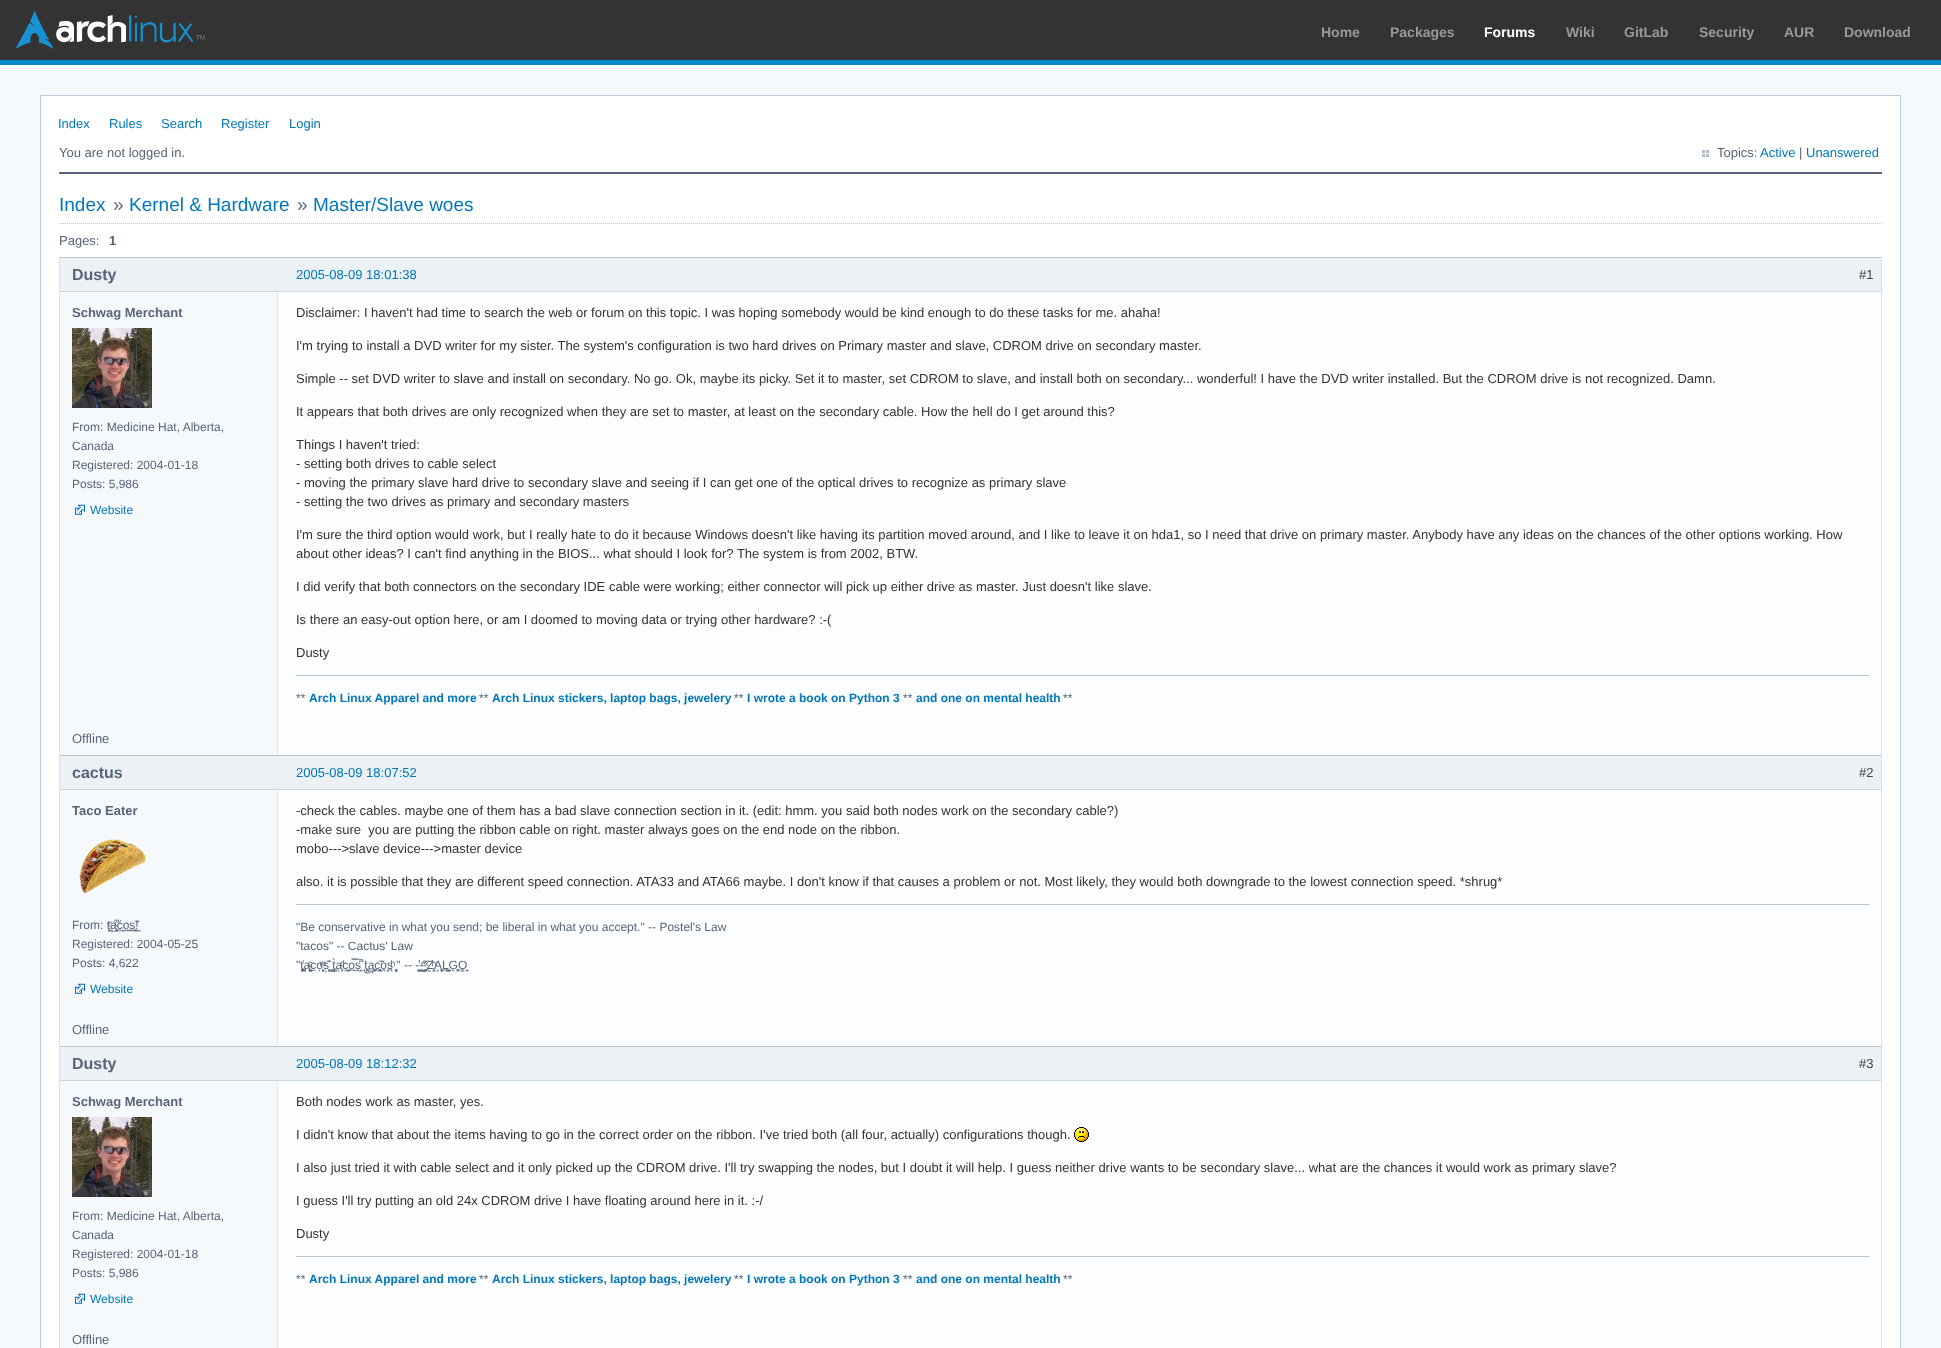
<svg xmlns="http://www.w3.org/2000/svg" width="1941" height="1348">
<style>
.a{font:bold 14px Liberation Sans;fill:#999}
.b{font:bold 14px Liberation Sans;fill:#fff}
.c{font:13px Liberation Sans;fill:#07b}
.d{font:13px Liberation Sans;fill:#566579}
.e{font:19px Liberation Sans;fill:#07b}
.f{font:19px Liberation Sans;fill:#566579}
.g{font:bold 13px Liberation Sans;fill:#566579}
.h{font:bold 16px Liberation Sans;fill:#566579}
.i{font:12px Liberation Sans;fill:#566579}
.j{font:12px Liberation Sans;fill:#07b}
.k{font:13px Liberation Sans;fill:#333}
.l{font:bold 12px Liberation Sans;fill:#07b}
.m{font:13px Liberation Sans;fill:#444}
</style>
<rect width="100%" height="100%" fill="#f6f9fc"/>
<path fill="#333" d="M0 0h1941v60H0z"/>
<path fill="#08c" d="M0 60h1941v5H0z"/>
<image href="1.png" x="15" y="10" width="190" height="39"/>
<path fill="#fff" stroke="#bcd" d="M40.5 95.5h1860v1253H40.5z"/>
<image href="2.png" x="1702" y="150" width="7" height="7"/>
<path fill="#566579" d="M59 172h1823v2H59z"/>
<path fill="none" stroke="#b9c5ce" stroke-dasharray="1 1" d="M59 223.5h1823"/>
<path fill="#f6f9fc" d="M60 292h217v463H60z"/>
<path fill="#b9c5ce" d="M59 257h1823v1H59z"/>
<path fill="#d9e1e7" d="M1881 257h1v499H1881z"/>
<path fill="#d9e1e7" d="M59 257h1v499H59z"/>
<path fill="#fcfdfe" d="M278 292h1603v463H278z"/>
<path fill="#dfe6ee" d="M277 292h1v463H277z"/>
<image href="3.png" x="72" y="328" width="80" height="80"/>
<image href="4.png" x="75" y="504" width="10" height="11"/>
<path fill="#b9c5ce" d="M296 675h1573v1H296z"/>
<path fill="#ebf1f5" d="M60 258h1821v33H60z"/>
<path fill="#cad7e1" d="M60 291h1821v1H60z"/>
<path fill="#f6f9fc" d="M60 790h217v256H60z"/>
<path fill="#b9c5ce" d="M59 755h1823v1H59z"/>
<path fill="#d9e1e7" d="M1881 755h1v292H1881z"/>
<path fill="#d9e1e7" d="M59 755h1v292H59z"/>
<path fill="#fcfdfe" d="M278 790h1603v256H278z"/>
<path fill="#dfe6ee" d="M277 790h1v256H277z"/>
<image href="5.png" x="79" y="839" width="67" height="55"/>
<image href="4.png" x="75" y="983" width="10" height="11"/>
<path fill="#b9c5ce" d="M296 904h1573v1H296z"/>
<path fill="#ebf1f5" d="M60 756h1821v33H60z"/>
<path fill="#cad7e1" d="M60 789h1821v1H60z"/>
<path fill="#f6f9fc" d="M60 1081h217v267H60z"/>
<path fill="#b9c5ce" d="M59 1046h1823v1H59z"/>
<path fill="#d9e1e7" d="M1881 1046h1v302H1881z"/>
<path fill="#d9e1e7" d="M59 1046h1v302H59z"/>
<path fill="#fcfdfe" d="M278 1081h1603v267H278z"/>
<path fill="#dfe6ee" d="M277 1081h1v267H277z"/>
<image href="3.png" x="72" y="1117" width="80" height="80"/>
<image href="4.png" x="75" y="1293" width="10" height="11"/>
<image href="6.png" x="1074" y="1127" width="15" height="15"/>
<path fill="#b9c5ce" d="M296 1256h1573v1H296z"/>
<path fill="#ebf1f5" d="M60 1047h1821v33H60z"/>
<path fill="#cad7e1" d="M60 1080h1821v1H60z"/>
<text class="a" x="1321" y="37">Home</text>
<text class="a" x="1390" y="37">Packages</text>
<text class="b" x="1484" y="37">Forums</text>
<text class="a" x="1566" y="37">Wiki</text>
<text class="a" x="1624" y="37">GitLab</text>
<text class="a" x="1699" y="37">Security</text>
<text class="a" x="1784" y="37">AUR</text>
<text class="a" x="1844" y="37">Download</text>
<text class="c" x="58" y="128">Index</text>
<text class="c" x="109" y="128">Rules</text>
<text class="c" x="161" y="128">Search</text>
<text class="c" x="221" y="128">Register</text>
<text class="c" x="289" y="128">Login</text>
<text class="d" x="59" y="157">You are not logged in.</text>
<text class="d" x="1717" y="157">Topics:</text>
<text class="c" x="1760" y="157">Active</text>
<text class="d" x="1799" y="157">|</text>
<text class="c" x="1806" y="157">Unanswered</text>
<text class="e" x="59" y="211">Index</text>
<text class="f" x="113" y="211">»</text>
<text class="e" x="129" y="211">Kernel &amp; Hardware</text>
<text class="f" x="297" y="211">»</text>
<text class="e" x="313" y="211">Master/Slave woes</text>
<text class="d" x="59" y="245">Pages:</text>
<text class="g" x="109" y="245">1</text>
<text class="h" x="72" y="280">Dusty</text>
<text class="g" x="72" y="317">Schwag Merchant</text>
<text class="i" x="72" y="431">From: Medicine Hat, Alberta,</text>
<text class="i" x="72" y="450">Canada</text>
<text class="i" x="72" y="469">Registered: 2004-01-18</text>
<text class="i" x="72" y="488">Posts: 5,986</text>
<text class="j" x="90" y="514">Website</text>
<text class="k" x="296" y="317">Disclaimer: I haven't had time to search the web or forum on this topic. I was hoping somebody would be kind enough to do these tasks for me. ahaha!</text>
<text class="k" x="296" y="350">I'm trying to install a DVD writer for my sister. The system's configuration is two hard drives on Primary master and slave, CDROM drive on secondary master.</text>
<text class="k" x="296" y="383">Simple -- set DVD writer to slave and install on secondary. No go. Ok, maybe its picky. Set it to master, set CDROM to slave, and install both on secondary... wonderful! I have the DVD writer installed. But the CDROM drive is not recognized. Damn.</text>
<text class="k" x="296" y="416">It appears that both drives are only recognized when they are set to master, at least on the secondary cable. How the hell do I get around this?</text>
<text class="k" x="296" y="449">Things I haven't tried:</text>
<text class="k" x="296" y="468">- setting both drives to cable select</text>
<text class="k" x="296" y="487">- moving the primary slave hard drive to secondary slave and seeing if I can get one of the optical drives to recognize as primary slave</text>
<text class="k" x="296" y="506">- setting the two drives as primary and secondary masters</text>
<text class="k" x="296" y="539">I'm sure the third option would work, but I really hate to do it because Windows doesn't like having its partition moved around, and I like to leave it on hda1, so I need that drive on primary master. Anybody have any ideas on the chances of the other options working. How</text>
<text class="k" x="296" y="558">about other ideas? I can't find anything in the BIOS... what should I look for? The system is from 2002, BTW.</text>
<text class="k" x="296" y="591">I did verify that both connectors on the secondary IDE cable were working; either connector will pick up either drive as master. Just doesn't like slave.</text>
<text class="k" x="296" y="624">Is there an easy-out option here, or am I doomed to moving data or trying other hardware? :-(</text>
<text class="k" x="296" y="657">Dusty</text>
<text class="i" x="296" y="702">**</text>
<text class="l" x="309" y="702">Arch Linux Apparel and more</text>
<text class="i" x="479" y="702">**</text>
<text class="l" x="492" y="702">Arch Linux stickers, laptop bags, jewelery</text>
<text class="i" x="734" y="702">**</text>
<text class="l" x="747" y="702">I wrote a book on Python 3</text>
<text class="i" x="903" y="702">**</text>
<text class="l" x="916" y="702">and one on mental health</text>
<text class="i" x="1063" y="702">**</text>
<text class="d" x="72" y="743">Offline</text>
<text class="c" x="296" y="279">2005-08-09 18:01:38</text>
<text class="m" x="1859" y="279">#1</text>
<text class="h" x="72" y="778">cactus</text>
<text class="g" x="72" y="815">Taco Eater</text>
<text class="i" x="72" y="929">From: t͈̫̹ͨa͖͕͎̱͈ͨ͆ć̥̖̝o̫̫̼s͈̭̱̞͍̃!̰</text>
<text class="i" x="72" y="948">Registered: 2004-05-25</text>
<text class="i" x="72" y="967">Posts: 4,622</text>
<text class="j" x="90" y="993">Website</text>
<text class="k" x="296" y="815">-check the cables. maybe one of them has a bad slave connection section in it. (edit: hmm. you said both nodes work on the secondary cable?)</text>
<text class="k" xml:space="preserve" x="296" y="834">-make sure  you are putting the ribbon cable on right. master always goes on the end node on the ribbon.</text>
<text class="k" x="296" y="853">mobo---&gt;slave device---&gt;master device</text>
<text class="k" x="296" y="886">also. it is possible that they are different speed connection. ATA33 and ATA66 maybe. I don't know if that causes a problem or not. Most likely, they would both downgrade to the lowest connection speed. *shrug*</text>
<text class="i" x="296" y="931">"Be conservative in what you send; be liberal in what you accept." -- Postel's Law</text>
<text class="i" x="296" y="950">"tacos" -- Cactus' Law</text>
<text class="i" x="296" y="969">"t̥͍͎̪̪͗a̴̻̩͈͚ͨc̠o̩̙͈ͫͅs͙͎̙͊ ͔͇̫̜t͎̳̀a̜̞̗ͩc̗͍͚o̲̯̿s̖̣̤̙͌ ̖̜̈ț̰̫͓ạ̪͖̳c̲͎͕̰̯̃̈o͉ͅs̪ͪ ̜̻̖̜͕" -- -̖͚̫̙̓-̺̠͇ͤ̃ ̜̪̜ͯZ͔̗̭̞ͪA̝͈̙͖̩L͉̠̺͓G̙̞̦͖O̳̗͍</text>
<text class="d" x="72" y="1034">Offline</text>
<text class="c" x="296" y="777">2005-08-09 18:07:52</text>
<text class="m" x="1859" y="777">#2</text>
<text class="h" x="72" y="1069">Dusty</text>
<text class="g" x="72" y="1106">Schwag Merchant</text>
<text class="i" x="72" y="1220">From: Medicine Hat, Alberta,</text>
<text class="i" x="72" y="1239">Canada</text>
<text class="i" x="72" y="1258">Registered: 2004-01-18</text>
<text class="i" x="72" y="1277">Posts: 5,986</text>
<text class="j" x="90" y="1303">Website</text>
<text class="k" x="296" y="1106">Both nodes work as master, yes.</text>
<text class="k" x="296" y="1139">I didn't know that about the items having to go in the correct order on the ribbon. I've tried both (all four, actually) configurations though.</text>
<text class="k" x="296" y="1172">I also just tried it with cable select and it only picked up the CDROM drive. I'll try swapping the nodes, but I doubt it will help. I guess neither drive wants to be secondary slave... what are the chances it would work as primary slave?</text>
<text class="k" x="296" y="1205">I guess I'll try putting an old 24x CDROM drive I have floating around here in it. :-/</text>
<text class="k" x="296" y="1238">Dusty</text>
<text class="i" x="296" y="1283">**</text>
<text class="l" x="309" y="1283">Arch Linux Apparel and more</text>
<text class="i" x="479" y="1283">**</text>
<text class="l" x="492" y="1283">Arch Linux stickers, laptop bags, jewelery</text>
<text class="i" x="734" y="1283">**</text>
<text class="l" x="747" y="1283">I wrote a book on Python 3</text>
<text class="i" x="903" y="1283">**</text>
<text class="l" x="916" y="1283">and one on mental health</text>
<text class="i" x="1063" y="1283">**</text>
<text class="d" x="72" y="1344">Offline</text>
<text class="c" x="296" y="1068">2005-08-09 18:12:32</text>
<text class="m" x="1859" y="1068">#3</text>
</svg>
